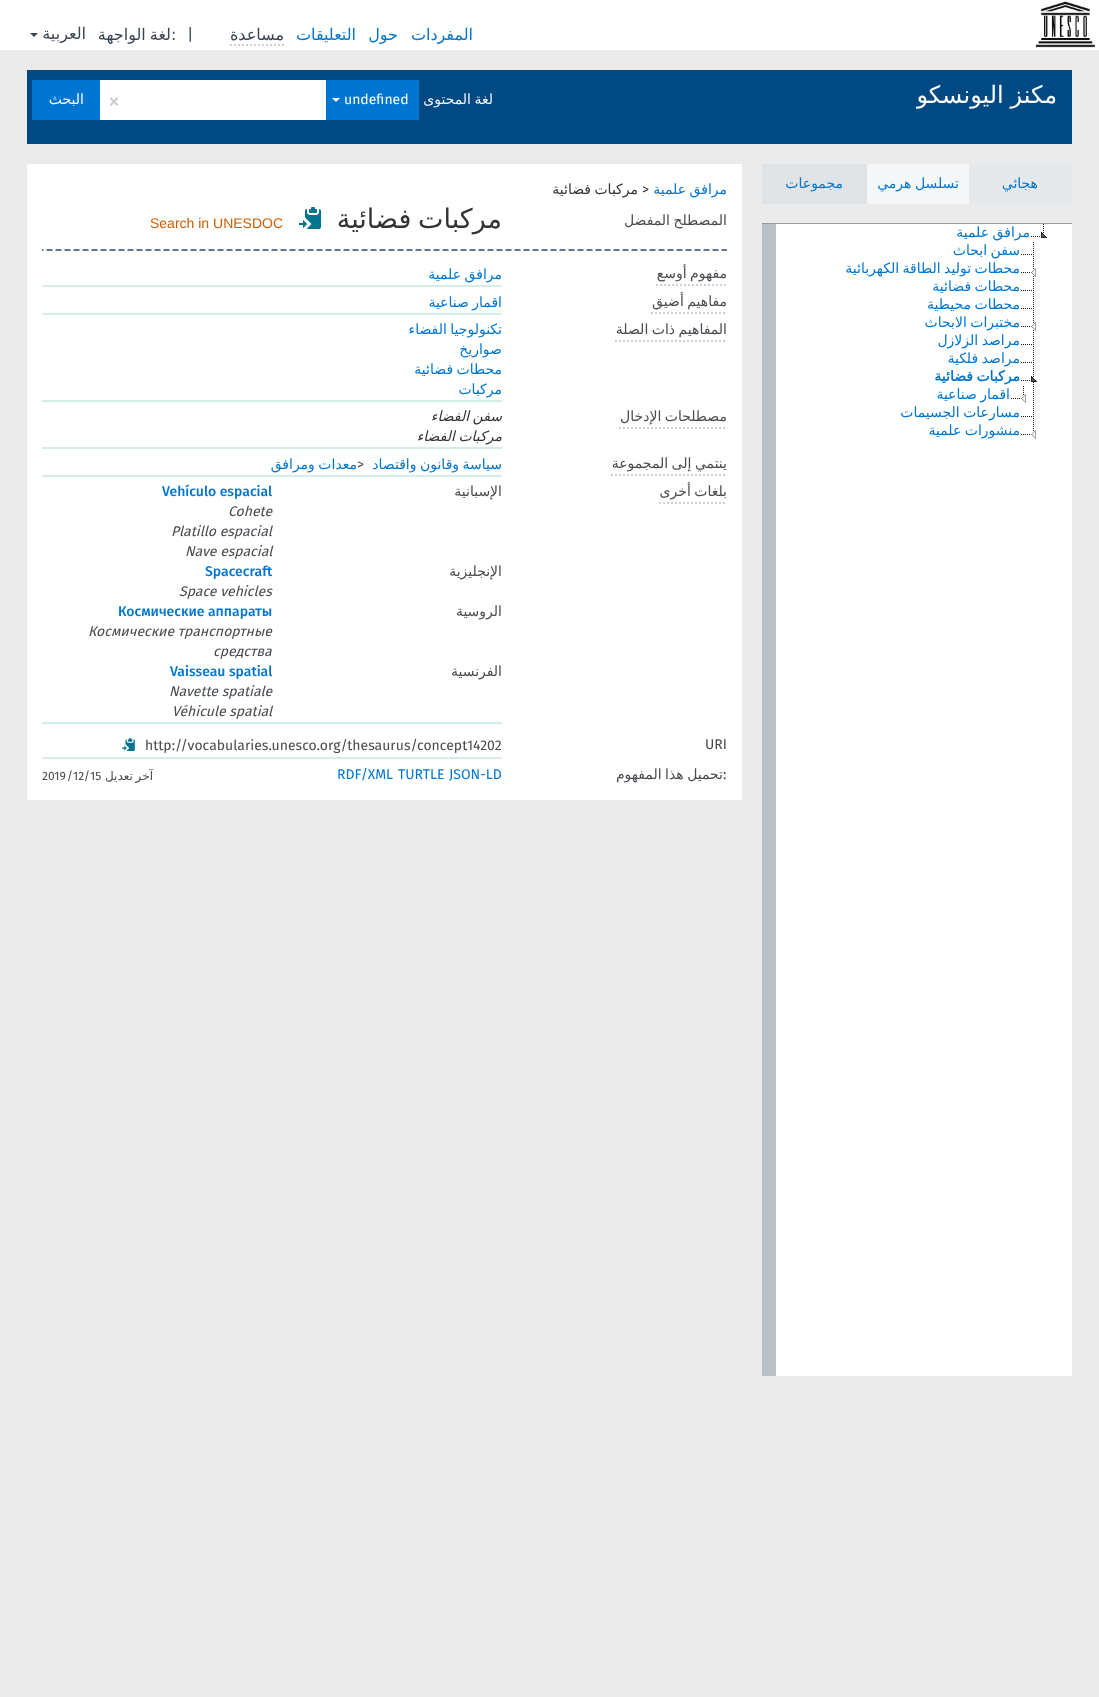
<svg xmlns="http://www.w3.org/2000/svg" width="1099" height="1697">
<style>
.a{font:16px DejaVu Sans;direction:rtl;fill:#0075d1}
.b{font:16px DejaVu Sans;direction:rtl;fill:#394554}
.c{font:16px Fira Sans;fill:#394554}
.d{font:16px DejaVu Sans;fill:#394554}
.e{font:24px DejaVu Sans;direction:rtl;fill:#fcfdfe}
.f{font:14px DejaVu Sans;direction:rtl;fill:#f2f6f9}
.g{font:14px Fira Sans;fill:#fcfdfe}
.h{font:24px Fira Sans;fill:#ccc}
.i{font:14px DejaVu Sans;direction:rtl;fill:#fcfdfe}
.j{font:14px DejaVu Sans;direction:rtl;fill:#0075d1}
.k{font:bold 14px DejaVu Sans;direction:rtl;fill:#0075d1}
.l{font:14px Fira Sans;fill:#333}
.m{font:14px DejaVu Sans;direction:rtl;fill:#333}
.n{font:14px DejaVu Sans;direction:rtl;fill:#474b4f}
.o{font:27px DejaVu Sans;direction:rtl;fill:#333}
.p{font:14px Liberation Sans;fill:#d15c00}
.q{font:italic 14px DejaVu Sans;direction:rtl;fill:#333}
.r{font:14px Fira Sans;fill:#474b4f}
.s{font:500 14px Fira Sans;fill:#0075d1}
.t{font:italic 14px Fira Sans;fill:#474b4f}
.u{font:14px Fira Sans;fill:#0075d1}
.v{font:12px DejaVu Sans;direction:rtl;fill:#474b4f}
.w{font:12px Fira Sans;fill:#474b4f}
.x{font:12px Fira Sans;direction:rtl;fill:#474b4f}
</style>
<defs>
<clipPath id="clip1"><path d="M916 70h141v50H916z"/></clipPath>
</defs>
<rect width="100%" height="100%" fill="#ebebeb"/>
<path fill="#fff" d="M0 0h1099v50H0z"/>
<image href="1.png" x="1035" y="1" width="60" height="47"/>
<path fill="none" stroke="#cfcfcf" stroke-width="2" stroke-dasharray="2 2" d="M230 45h54"/>
<path fill="#394554" d="M30 33h8l-4 4z"/>
<path fill="#004983" d="M27 70h1045v74H27z"/>
<path fill="#0075d1" d="M326 80h93v40H326z"/>
<path fill="#fff" d="M332 98h8l-4 4z"/>
<path fill="#fff" d="M100 80h226v40H100z"/>
<path fill="#0075d1" d="M32 80h68v40H32z"/>
<path fill="#e0e4e7" d="M762 164h105v40H762z"/>
<path fill="#e6e9eb" d="M969 164h103v40H969z"/>
<path fill="#f6f7f8" d="M867 164h102v40H867z"/>
<path fill="#999" d="M762 223h310v1H762z"/>
<path fill="#fff" d="M776 224h296v1152H776z"/>
<image href="2.png" x="1031" y="224" width="16" height="14"/>
<image href="3.png" x="1033" y="242" width="1" height="17"/>
<image href="4.png" x="1021" y="254" width="11" height="1"/>
<image href="3.png" x="1033" y="260" width="1" height="17"/>
<image href="5.png" x="1021" y="268" width="15" height="9"/>
<image href="3.png" x="1033" y="278" width="1" height="17"/>
<image href="4.png" x="1021" y="290" width="11" height="1"/>
<image href="3.png" x="1033" y="296" width="1" height="17"/>
<image href="4.png" x="1021" y="308" width="11" height="1"/>
<image href="3.png" x="1033" y="314" width="1" height="17"/>
<image href="5.png" x="1021" y="322" width="15" height="9"/>
<image href="3.png" x="1033" y="332" width="1" height="17"/>
<image href="4.png" x="1021" y="344" width="11" height="1"/>
<image href="3.png" x="1033" y="350" width="1" height="17"/>
<image href="4.png" x="1021" y="362" width="11" height="1"/>
<image href="6.png" x="1033" y="368" width="1" height="35"/>
<image href="7.png" x="1021" y="376" width="16" height="6"/>
<image href="8.png" x="1011" y="386" width="15" height="17"/>
<image href="3.png" x="1033" y="404" width="1" height="17"/>
<image href="4.png" x="1021" y="416" width="11" height="1"/>
<image href="8.png" x="1021" y="422" width="15" height="17"/>
<path fill="#b9c1c6" d="M762 224h14v1152H762z"/>
<path fill="#fff" d="M27 164h715v636H27z"/>
<image href="9.png" x="299" y="207" width="22" height="22"/>
<image href="10.png" x="42" y="249" width="685" height="2"/>
<path fill="none" stroke="#cfcfcf" stroke-width="2" stroke-dasharray="2 2" d="M656 285h71"/>
<path fill="#d4edeb" d="M42 285h460v2H42z"/>
<path fill="none" stroke="#cfcfcf" stroke-width="2" stroke-dasharray="2 2" d="M651 313h76"/>
<path fill="#d4edeb" d="M42 313h460v2H42z"/>
<path fill="none" stroke="#cfcfcf" stroke-width="2" stroke-dasharray="2 2" d="M615 341h112"/>
<path fill="#d4edeb" d="M42 400h460v2H42z"/>
<path fill="none" stroke="#cfcfcf" stroke-width="2" stroke-dasharray="2 2" d="M619 428h108"/>
<path fill="#d4edeb" d="M42 447h460v2H42z"/>
<path fill="none" stroke="#cfcfcf" stroke-width="2" stroke-dasharray="2 2" d="M611 475h116"/>
<path fill="#d4edeb" d="M42 475h460v2H42z"/>
<path fill="none" stroke="#cfcfcf" stroke-width="2" stroke-dasharray="2 2" d="M659 503h68"/>
<path fill="#d4edeb" d="M42 722h460v2H42z"/>
<path fill="#d4edeb" d="M42 757h460v2H42z"/>
<image href="11.png" x="122" y="738" width="13" height="13"/>
<text class="a" x="473" y="40">المفردات</text>
<text class="a" x="398" y="40">حول</text>
<text class="a" x="356" y="40">التعليقات</text>
<text class="b" x="284" y="40">مساعدة</text>
<text class="c" x="187" y="40">|</text>
<text class="d" x="171" y="40">:</text>
<text class="b" x="171" y="40" word-spacing="-1">لغة الواجهة</text>
<text class="b" x="86" y="39">العربية</text>
<g clip-path="url(#clip1)">
<text class="e" x="1057" y="103" word-spacing="-1">مكنز اليونسكو</text>
</g>
<text class="f" x="493" y="104" word-spacing="-1">لغة المحتوى</text>
<text class="g" x="344" y="104">undefined</text>
<text class="h" x="108" y="109">×</text>
<text class="i" x="84" y="104">البحث</text>
<text class="j" x="1038" y="188">هجائي</text>
<text class="j" x="959" y="188" word-spacing="-1">تسلسل هرمي</text>
<text class="j" x="843" y="188">مجموعات</text>
<text class="j" x="1030" y="237" word-spacing="-1">مرافق علمية</text>
<text class="j" x="1020" y="255" word-spacing="-1">سفن ابحاث</text>
<text class="j" x="1020" y="273" word-spacing="-1">محطات توليد الطاقة الكهربائية</text>
<text class="j" x="1020" y="291" word-spacing="-1">محطات فضائية</text>
<text class="j" x="1020" y="309" word-spacing="-1">محطات محيطية</text>
<text class="j" x="1020" y="327" word-spacing="-1">مختبرات الابحاث</text>
<text class="j" x="1020" y="345" word-spacing="-1">مراصد الزلازل</text>
<text class="j" x="1020" y="363" word-spacing="-1">مراصد فلكية</text>
<text class="k" x="1020" y="381" word-spacing="-1">مركبات فضائية</text>
<text class="j" x="1010" y="399" word-spacing="-1">اقمار صناعية</text>
<text class="j" x="1020" y="417" word-spacing="-1">مسارعات الجسيمات</text>
<text class="j" x="1020" y="435" word-spacing="-1">منشورات علمية</text>
<text class="j" x="727" y="194" word-spacing="-1">مرافق علمية</text>
<text class="l" x="642" y="194">&gt;</text>
<text class="m" x="638" y="194" word-spacing="-1">مركبات فضائية</text>
<text class="n" x="727" y="225" word-spacing="-1">المصطلح المفضل</text>
<text class="o" x="502" y="228" word-spacing="-2">مركبات فضائية</text>
<text class="p" x="150" y="228">Search in UNESDOC</text>
<text class="n" x="727" y="278" word-spacing="-1">مفهوم أوسع</text>
<text class="j" x="502" y="279" word-spacing="-1">مرافق علمية</text>
<text class="n" x="727" y="306" word-spacing="-1">مفاهيم أضيق</text>
<text class="j" x="502" y="307" word-spacing="-1">اقمار صناعية</text>
<text class="n" x="727" y="334" word-spacing="-1">المفاهيم ذات الصلة</text>
<text class="j" x="502" y="334" word-spacing="-1">تكنولوجيا الفضاء</text>
<text class="j" x="502" y="354">صواريخ</text>
<text class="j" x="502" y="374" word-spacing="-1">محطات فضائية</text>
<text class="j" x="502" y="394">مركبات</text>
<text class="n" x="727" y="421" word-spacing="-1">مصطلحات الإدخال</text>
<text class="q" x="502" y="421" word-spacing="-1">سفن الفضاء</text>
<text class="q" x="502" y="441" word-spacing="-1">مركبات الفضاء</text>
<text class="n" x="727" y="468" word-spacing="-1">ينتمي إلى المجموعة</text>
<text class="j" x="502" y="469" word-spacing="-1">سياسة وقانون واقتصاد</text>
<text class="r" x="357" y="469">&gt;</text>
<text class="j" x="357" y="469" word-spacing="-1">معدات ومرافق</text>
<text class="n" x="727" y="496" word-spacing="-1">بلغات أخرى</text>
<text class="n" x="502" y="496">الإسبانية</text>
<text class="s" x="162" y="496">Vehículo espacial</text>
<text class="t" x="228" y="516">Cohete</text>
<text class="t" x="171" y="536">Platillo espacial</text>
<text class="t" x="185" y="556">Nave espacial</text>
<text class="n" x="502" y="576">الإنجليزية</text>
<text class="s" x="205" y="576">Spacecraft</text>
<text class="t" x="179" y="596">Space vehicles</text>
<text class="n" x="502" y="616">الروسية</text>
<text class="s" x="118" y="616">Космические аппараты</text>
<text class="t" x="88" y="636">Космические транспортные</text>
<text class="t" x="213" y="656">средства</text>
<text class="n" x="502" y="676">الفرنسية</text>
<text class="s" x="170" y="676">Vaisseau spatial</text>
<text class="t" x="169" y="696">Navette spatiale</text>
<text class="t" x="172" y="716">Véhicule spatial</text>
<text class="r" x="705" y="749">URI</text>
<text class="r" x="145" y="750">http://vocabularies.unesco.org/thesaurus/concept14202</text>
<text class="n" x="723" y="779" word-spacing="-1">تحميل هذا المفهوم</text>
<text class="r" x="723" y="779">:</text>
<text class="u" x="449" y="779">JSON-LD</text>
<text class="u" x="398" y="779">TURTLE</text>
<text class="u" x="337" y="779">RDF/XML</text>
<text class="v" x="153" y="780" word-spacing="-1">آخر تعديل</text>
<text class="w" x="90" y="780">15</text>
<text class="x" x="90" y="780">/</text>
<text class="w" x="73" y="780">12</text>
<text class="x" x="73" y="780">/</text>
<text class="w" x="42" y="780">2019</text>
</svg>
